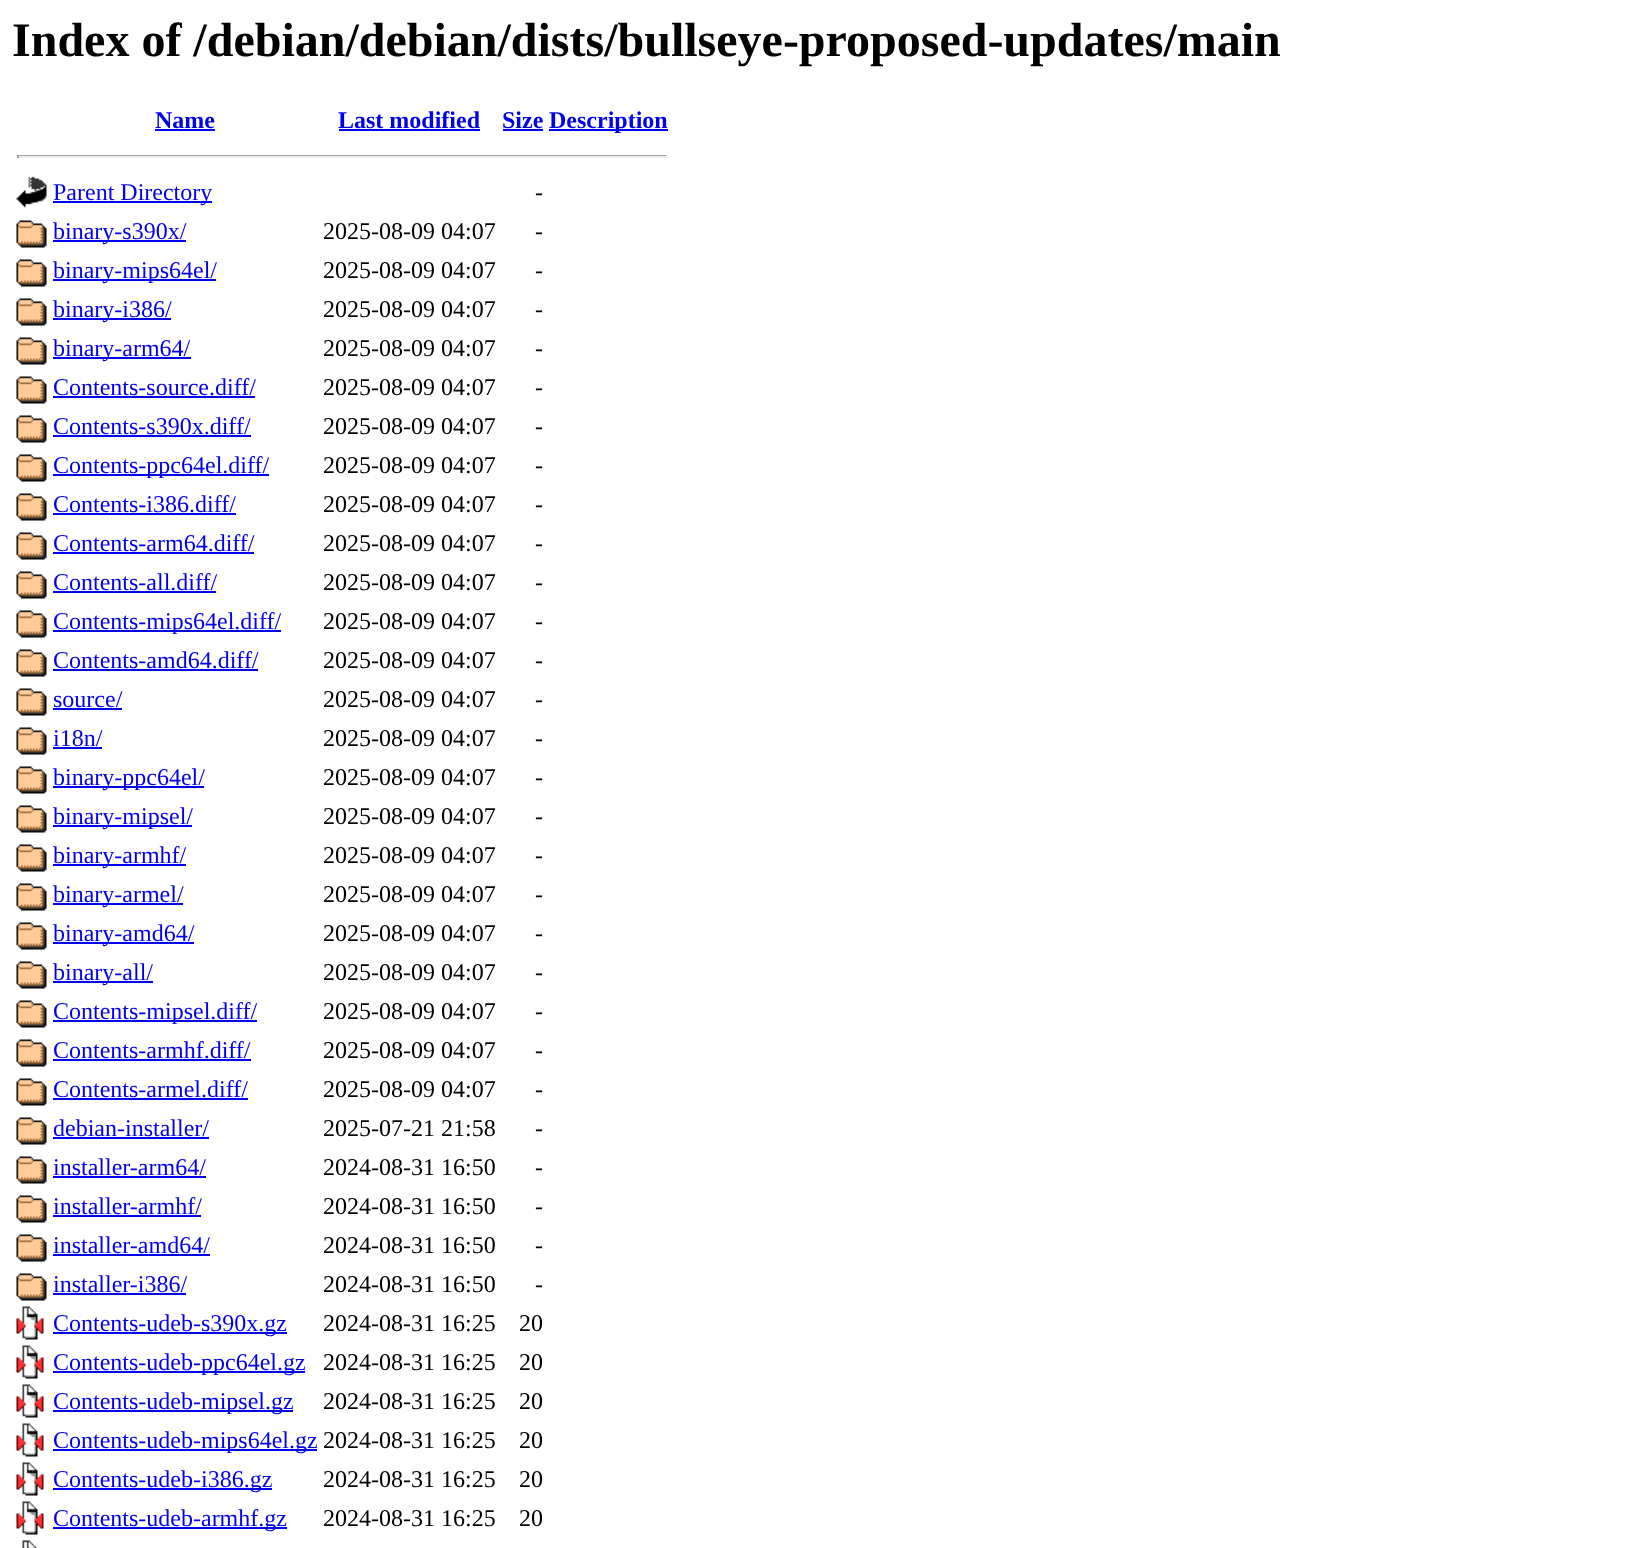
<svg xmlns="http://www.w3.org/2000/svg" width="1642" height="1548">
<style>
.a{font:bold 48px Liberation Serif;fill:#000}
.b{font:bold 24px Liberation Serif;fill:#00e}
.c{font:24px Liberation Serif;fill:#00e}
.d{font:24px Liberation Serif;fill:#000}
</style>
<rect width="100%" height="100%" fill="#fff"/>
<path fill="#00e" d="M155 129h60v2H155z"/>
<path fill="#00e" d="M339 129h141v2H339z"/>
<path fill="#00e" d="M503 129h40v2H503z"/>
<path fill="#00e" d="M549 129h119v2H549z"/>
<path fill="#9f9f9f" d="M17 155h651v1H17z"/>
<path fill="#eee" d="M666 155h2v3H666z"/>
<path fill="#eee" d="M17 156h651v2H17z"/>
<path fill="#9f9f9f" d="M17 155h2v3H17z"/>
<image href="1.png" x="16" y="176" width="31" height="32"/>
<path fill="#00e" d="M53 201h159v2H53z"/>
<image href="2.png" x="16" y="220" width="31" height="28"/>
<path fill="#00e" d="M53 240h133v2H53z"/>
<image href="2.png" x="16" y="259" width="31" height="28"/>
<path fill="#00e" d="M53 279h163v2H53z"/>
<image href="2.png" x="16" y="298" width="31" height="28"/>
<path fill="#00e" d="M53 318h118v2H53z"/>
<image href="2.png" x="16" y="337" width="31" height="28"/>
<path fill="#00e" d="M53 357h138v2H53z"/>
<image href="2.png" x="16" y="376" width="31" height="28"/>
<path fill="#00e" d="M53 396h202v2H53z"/>
<image href="2.png" x="16" y="415" width="31" height="28"/>
<path fill="#00e" d="M53 435h198v2H53z"/>
<image href="2.png" x="16" y="454" width="31" height="28"/>
<path fill="#00e" d="M53 474h216v2H53z"/>
<image href="2.png" x="16" y="493" width="31" height="28"/>
<path fill="#00e" d="M53 513h183v2H53z"/>
<image href="2.png" x="16" y="532" width="31" height="28"/>
<path fill="#00e" d="M53 552h201v2H53z"/>
<image href="2.png" x="16" y="571" width="31" height="28"/>
<path fill="#00e" d="M53 591h163v2H53z"/>
<image href="2.png" x="16" y="610" width="31" height="28"/>
<path fill="#00e" d="M53 630h228v2H53z"/>
<image href="2.png" x="16" y="649" width="31" height="28"/>
<path fill="#00e" d="M53 669h205v2H53z"/>
<image href="2.png" x="16" y="688" width="31" height="28"/>
<path fill="#00e" d="M53 708h69v2H53z"/>
<image href="2.png" x="16" y="727" width="31" height="28"/>
<path fill="#00e" d="M53 747h49v2H53z"/>
<image href="2.png" x="16" y="766" width="31" height="28"/>
<path fill="#00e" d="M53 786h151v2H53z"/>
<image href="2.png" x="16" y="805" width="31" height="28"/>
<path fill="#00e" d="M53 825h139v2H53z"/>
<image href="2.png" x="16" y="844" width="31" height="28"/>
<path fill="#00e" d="M53 864h133v2H53z"/>
<image href="2.png" x="16" y="883" width="31" height="28"/>
<path fill="#00e" d="M53 903h130v2H53z"/>
<image href="2.png" x="16" y="922" width="31" height="28"/>
<path fill="#00e" d="M53 942h141v2H53z"/>
<image href="2.png" x="16" y="961" width="31" height="28"/>
<path fill="#00e" d="M53 981h100v2H53z"/>
<image href="2.png" x="16" y="1000" width="31" height="28"/>
<path fill="#00e" d="M53 1020h204v2H53z"/>
<image href="2.png" x="16" y="1039" width="31" height="28"/>
<path fill="#00e" d="M53 1059h198v2H53z"/>
<image href="2.png" x="16" y="1078" width="31" height="28"/>
<path fill="#00e" d="M53 1098h195v2H53z"/>
<image href="2.png" x="16" y="1117" width="31" height="28"/>
<path fill="#00e" d="M53 1137h156v2H53z"/>
<image href="2.png" x="16" y="1156" width="31" height="28"/>
<path fill="#00e" d="M53 1176h153v2H53z"/>
<image href="2.png" x="16" y="1195" width="31" height="28"/>
<path fill="#00e" d="M53 1215h148v2H53z"/>
<image href="2.png" x="16" y="1234" width="31" height="28"/>
<path fill="#00e" d="M53 1254h157v2H53z"/>
<image href="2.png" x="16" y="1273" width="31" height="28"/>
<path fill="#00e" d="M53 1293h133v2H53z"/>
<image href="3.png" x="16" y="1306" width="28" height="34"/>
<path fill="#00e" d="M53 1332h234v2H53z"/>
<image href="3.png" x="16" y="1345" width="28" height="34"/>
<path fill="#00e" d="M53 1371h252v2H53z"/>
<image href="3.png" x="16" y="1384" width="28" height="34"/>
<path fill="#00e" d="M53 1410h240v2H53z"/>
<image href="3.png" x="16" y="1423" width="28" height="34"/>
<path fill="#00e" d="M53 1449h264v2H53z"/>
<image href="3.png" x="16" y="1462" width="28" height="34"/>
<path fill="#00e" d="M53 1488h219v2H53z"/>
<image href="3.png" x="16" y="1501" width="28" height="34"/>
<path fill="#00e" d="M53 1527h234v2H53z"/>
<image href="4.png" x="22" y="1540" width="16" height="8"/>
<text class="a" x="12" y="56">Index of /debian/debian/dists/bullseye-proposed-updates/main</text>
<text class="b" x="155" y="128">Name</text>
<text class="b" x="338" y="128">Last modified</text>
<text class="b" x="502" y="128">Size</text>
<text class="b" x="549" y="128">Description</text>
<text class="c" x="53" y="200">Parent Directory</text>
<text class="d" x="535" y="200">-</text>
<text class="c" x="53" y="239">binary-s390x/</text>
<text class="d" x="323" y="239">2025-08-09 04:07</text>
<text class="d" x="535" y="239">-</text>
<text class="c" x="53" y="278">binary-mips64el/</text>
<text class="d" x="323" y="278">2025-08-09 04:07</text>
<text class="d" x="535" y="278">-</text>
<text class="c" x="53" y="317">binary-i386/</text>
<text class="d" x="323" y="317">2025-08-09 04:07</text>
<text class="d" x="535" y="317">-</text>
<text class="c" x="53" y="356">binary-arm64/</text>
<text class="d" x="323" y="356">2025-08-09 04:07</text>
<text class="d" x="535" y="356">-</text>
<text class="c" x="53" y="395">Contents-source.diff/</text>
<text class="d" x="323" y="395">2025-08-09 04:07</text>
<text class="d" x="535" y="395">-</text>
<text class="c" x="53" y="434">Contents-s390x.diff/</text>
<text class="d" x="323" y="434">2025-08-09 04:07</text>
<text class="d" x="535" y="434">-</text>
<text class="c" x="53" y="473">Contents-ppc64el.diff/</text>
<text class="d" x="323" y="473">2025-08-09 04:07</text>
<text class="d" x="535" y="473">-</text>
<text class="c" x="53" y="512">Contents-i386.diff/</text>
<text class="d" x="323" y="512">2025-08-09 04:07</text>
<text class="d" x="535" y="512">-</text>
<text class="c" x="53" y="551">Contents-arm64.diff/</text>
<text class="d" x="323" y="551">2025-08-09 04:07</text>
<text class="d" x="535" y="551">-</text>
<text class="c" x="53" y="590">Contents-all.diff/</text>
<text class="d" x="323" y="590">2025-08-09 04:07</text>
<text class="d" x="535" y="590">-</text>
<text class="c" x="53" y="629">Contents-mips64el.diff/</text>
<text class="d" x="323" y="629">2025-08-09 04:07</text>
<text class="d" x="535" y="629">-</text>
<text class="c" x="53" y="668">Contents-amd64.diff/</text>
<text class="d" x="323" y="668">2025-08-09 04:07</text>
<text class="d" x="535" y="668">-</text>
<text class="c" x="53" y="707">source/</text>
<text class="d" x="323" y="707">2025-08-09 04:07</text>
<text class="d" x="535" y="707">-</text>
<text class="c" x="53" y="746">i18n/</text>
<text class="d" x="323" y="746">2025-08-09 04:07</text>
<text class="d" x="535" y="746">-</text>
<text class="c" x="53" y="785">binary-ppc64el/</text>
<text class="d" x="323" y="785">2025-08-09 04:07</text>
<text class="d" x="535" y="785">-</text>
<text class="c" x="53" y="824">binary-mipsel/</text>
<text class="d" x="323" y="824">2025-08-09 04:07</text>
<text class="d" x="535" y="824">-</text>
<text class="c" x="53" y="863">binary-armhf/</text>
<text class="d" x="323" y="863">2025-08-09 04:07</text>
<text class="d" x="535" y="863">-</text>
<text class="c" x="53" y="902">binary-armel/</text>
<text class="d" x="323" y="902">2025-08-09 04:07</text>
<text class="d" x="535" y="902">-</text>
<text class="c" x="53" y="941">binary-amd64/</text>
<text class="d" x="323" y="941">2025-08-09 04:07</text>
<text class="d" x="535" y="941">-</text>
<text class="c" x="53" y="980">binary-all/</text>
<text class="d" x="323" y="980">2025-08-09 04:07</text>
<text class="d" x="535" y="980">-</text>
<text class="c" x="53" y="1019">Contents-mipsel.diff/</text>
<text class="d" x="323" y="1019">2025-08-09 04:07</text>
<text class="d" x="535" y="1019">-</text>
<text class="c" x="53" y="1058">Contents-armhf.diff/</text>
<text class="d" x="323" y="1058">2025-08-09 04:07</text>
<text class="d" x="535" y="1058">-</text>
<text class="c" x="53" y="1097">Contents-armel.diff/</text>
<text class="d" x="323" y="1097">2025-08-09 04:07</text>
<text class="d" x="535" y="1097">-</text>
<text class="c" x="53" y="1136">debian-installer/</text>
<text class="d" x="323" y="1136">2025-07-21 21:58</text>
<text class="d" x="535" y="1136">-</text>
<text class="c" x="53" y="1175">installer-arm64/</text>
<text class="d" x="323" y="1175">2024-08-31 16:50</text>
<text class="d" x="535" y="1175">-</text>
<text class="c" x="53" y="1214">installer-armhf/</text>
<text class="d" x="323" y="1214">2024-08-31 16:50</text>
<text class="d" x="535" y="1214">-</text>
<text class="c" x="53" y="1253">installer-amd64/</text>
<text class="d" x="323" y="1253">2024-08-31 16:50</text>
<text class="d" x="535" y="1253">-</text>
<text class="c" x="53" y="1292">installer-i386/</text>
<text class="d" x="323" y="1292">2024-08-31 16:50</text>
<text class="d" x="535" y="1292">-</text>
<text class="c" x="53" y="1331">Contents-udeb-s390x.gz</text>
<text class="d" x="323" y="1331">2024-08-31 16:25</text>
<text class="d" x="519" y="1331">20</text>
<text class="c" x="53" y="1370">Contents-udeb-ppc64el.gz</text>
<text class="d" x="323" y="1370">2024-08-31 16:25</text>
<text class="d" x="519" y="1370">20</text>
<text class="c" x="53" y="1409">Contents-udeb-mipsel.gz</text>
<text class="d" x="323" y="1409">2024-08-31 16:25</text>
<text class="d" x="519" y="1409">20</text>
<text class="c" x="53" y="1448">Contents-udeb-mips64el.gz</text>
<text class="d" x="323" y="1448">2024-08-31 16:25</text>
<text class="d" x="519" y="1448">20</text>
<text class="c" x="53" y="1487">Contents-udeb-i386.gz</text>
<text class="d" x="323" y="1487">2024-08-31 16:25</text>
<text class="d" x="519" y="1487">20</text>
<text class="c" x="53" y="1526">Contents-udeb-armhf.gz</text>
<text class="d" x="323" y="1526">2024-08-31 16:25</text>
<text class="d" x="519" y="1526">20</text>
</svg>
